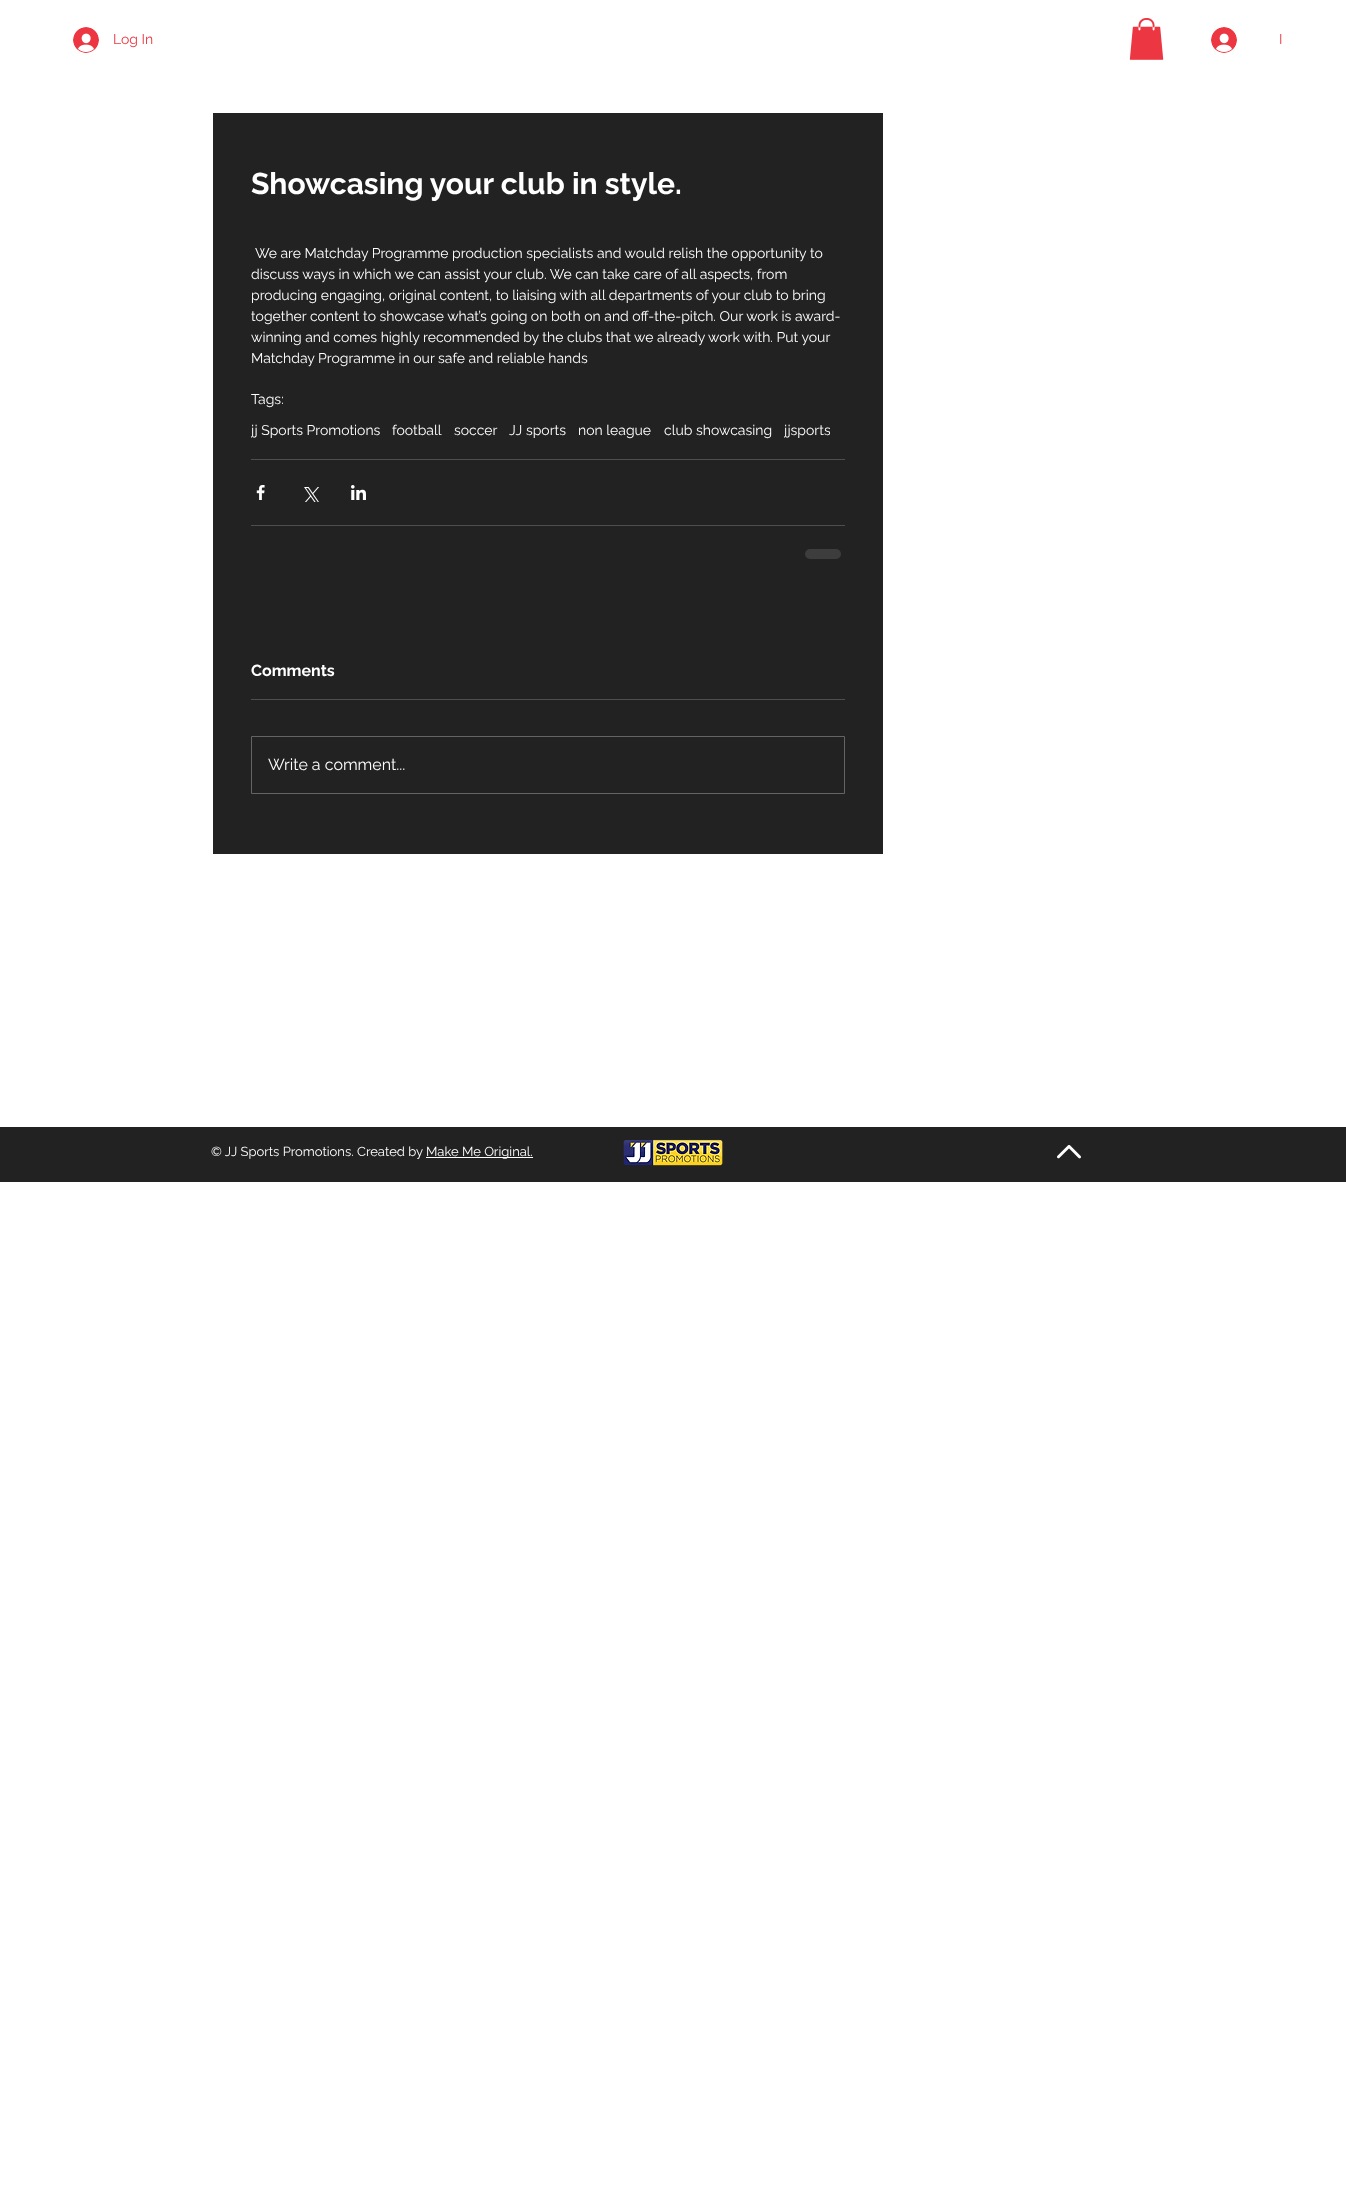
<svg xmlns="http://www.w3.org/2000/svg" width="1346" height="2197">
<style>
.a{font:14px Raleway;fill:#ec3642}
.b{font:bold 30px Raleway;fill:#fff}
.c{font:14px Raleway;fill:#fff}
.d{font:bold 16px Raleway;fill:#fff}
.e{font:16px Raleway;fill:#fff}
.f{font:13px Raleway;fill:#fff}
</style>
<defs>
<clipPath id="clip1"><path d="M251 422h129v17H251z"/></clipPath>
<clipPath id="clip2"><path d="M784 422h46v17H784z"/></clipPath>
</defs>
<rect width="100%" height="100%" fill="#fff"/>
<image href="1.png" x="73" y="27" width="26" height="26"/>
<image href="2.png" x="1129" y="18" width="35" height="42"/>
<image href="1.png" x="1211" y="27" width="26" height="26"/>
<image href="3.png" x="1252" y="37" width="19" height="9"/>
<image href="4.png" x="1288" y="37" width="2" height="7"/>
<path fill="#222" d="M213 113h670v741H213z"/>
<path fill="#4e4e4e" d="M251 459h594v1H251z"/>
<image href="5.png" x="256" y="485" width="9" height="15"/>
<image href="6.png" x="304" y="487" width="15" height="15"/>
<image href="7.png" x="351" y="485" width="15" height="15"/>
<path fill="#4e4e4e" d="M251 525h594v1H251z"/>
<rect fill="#3d3d3d" x="805" y="549" width="36" height="10" rx="5"/>
<path fill="#4e4e4e" d="M251 699h594v1H251z"/>
<path fill="none" stroke="#646464" d="M251.5 736.5h593v57H251.5z"/>
<path fill="#222" d="M0 1127h1346v55H0z"/>
<path fill="#fff" d="M426 1157h107v1H426z"/>
<image href="8.png" x="623" y="1139" width="100" height="27"/>
<image href="9.png" x="1057" y="1145" width="24" height="14"/>
<text class="a" x="113" y="44">Log In</text>
<text class="a" x="1279" y="44">I</text>
<text class="b" x="251" y="194">Showcasing your club in style.</text>
<text class="c" x="255" y="258">We are Matchday Programme production specialists and would relish the opportunity to</text>
<text class="c" x="251" y="279">discuss ways in which we can assist your club. We can take care of all aspects, from</text>
<text class="c" x="251" y="300">producing engaging, original content, to liaising with all departments of your club to bring</text>
<text class="c" x="251" y="321">together content to showcase what’s going on both on and off-the-pitch. Our work is award-</text>
<text class="c" x="251" y="342">winning and comes highly recommended by the clubs that we already work with. Put your</text>
<text class="c" x="251" y="363">Matchday Programme in our safe and reliable hands</text>
<text class="c" x="251" y="404">Tags:</text>
<g clip-path="url(#clip1)">
<text class="c" x="251" y="435">jj Sports Promotions</text>
</g>
<text class="c" x="392" y="435">football</text>
<text class="c" x="454" y="435">soccer</text>
<text class="c" x="509" y="435">JJ sports</text>
<text class="c" x="578" y="435">non league</text>
<text class="c" x="664" y="435">club showcasing</text>
<g clip-path="url(#clip2)">
<text class="c" x="784" y="435">jjsports</text>
</g>
<text class="d" x="251" y="676">Comments</text>
<text class="e" x="268" y="770">Write a comment...</text>
<text class="f" x="211" y="1156">© JJ Sports Promotions. Created by</text>
<text class="f" x="426" y="1156">Make Me Original.</text>
</svg>
